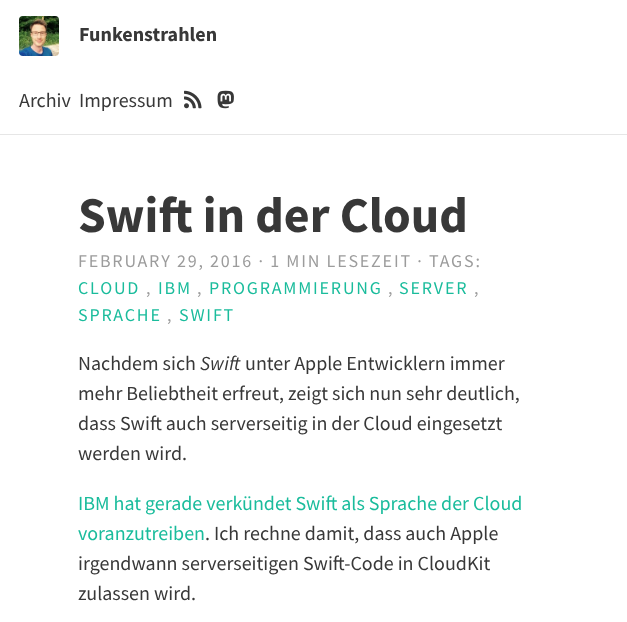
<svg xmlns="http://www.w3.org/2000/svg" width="627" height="622">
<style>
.a{font:bold 20px Source Sans Pro;fill:#383838}
.b{font:20px Source Sans Pro;fill:#383838}
.c{font:bold 50px Source Sans Pro;fill:#383838}
.d{font:18px Source Sans Pro;letter-spacing:1.8px;fill:#9c9c9c}
.e{font:18px Source Sans Pro;letter-spacing:1.8px;fill:#1abc9c}
.f{font:italic 20px Source Sans Pro;fill:#383838}
.g{font:20px Source Sans Pro;fill:#1abc9c}
</style>
<rect width="100%" height="100%" fill="#fff"/>
<path fill="#e6e6e6" d="M0 134h627v1H0z"/>
<image href="1.png" x="19" y="16" width="40" height="40"/>
<image href="2.png" x="184" y="90" width="18" height="19"/>
<image href="3.png" x="217" y="90" width="17" height="19"/>
<text class="a" x="79" y="41">Funkenstrahlen</text>
<text class="b" x="19" y="107">Archiv</text>
<text class="b" x="79" y="107">Impressum</text>
<text class="c" x="78" y="232">Swift in der Cloud</text>
<text class="d" x="78" y="267">FEBRUARY 29, 2016 · 1 MIN LESEZEIT · TAGS:</text>
<text class="e" x="78" y="294">CLOUD</text>
<text class="d" x="146" y="294">,</text>
<text class="e" x="158" y="294">IBM</text>
<text class="d" x="197" y="294">,</text>
<text class="e" x="209" y="294">PROGRAMMIERUNG</text>
<text class="d" x="388" y="294">,</text>
<text class="e" x="399" y="294">SERVER</text>
<text class="d" x="474" y="294">,</text>
<text class="e" x="78" y="321">SPRACHE</text>
<text class="d" x="167" y="321">,</text>
<text class="e" x="179" y="321">SWIFT</text>
<text class="b" x="78" y="370">Nachdem sich</text>
<text class="f" x="200" y="370">Swift</text>
<text class="b" x="245" y="370">unter Apple Entwicklern immer</text>
<text class="b" x="78" y="400">mehr Beliebtheit erfreut, zeigt sich nun sehr deutlich,</text>
<text class="b" x="78" y="430">dass Swift auch serverseitig in der Cloud eingesetzt</text>
<text class="b" x="78" y="460">werden wird.</text>
<text class="g" x="78" y="510">IBM hat gerade verkündet Swift als Sprache der Cloud</text>
<text class="g" x="78" y="540">voranzutreiben</text>
<text class="b" x="205" y="540">. Ich rechne damit, dass auch Apple</text>
<text class="b" x="78" y="570">irgendwann serverseitigen Swift-Code in CloudKit</text>
<text class="b" x="78" y="600">zulassen wird.</text>
</svg>
